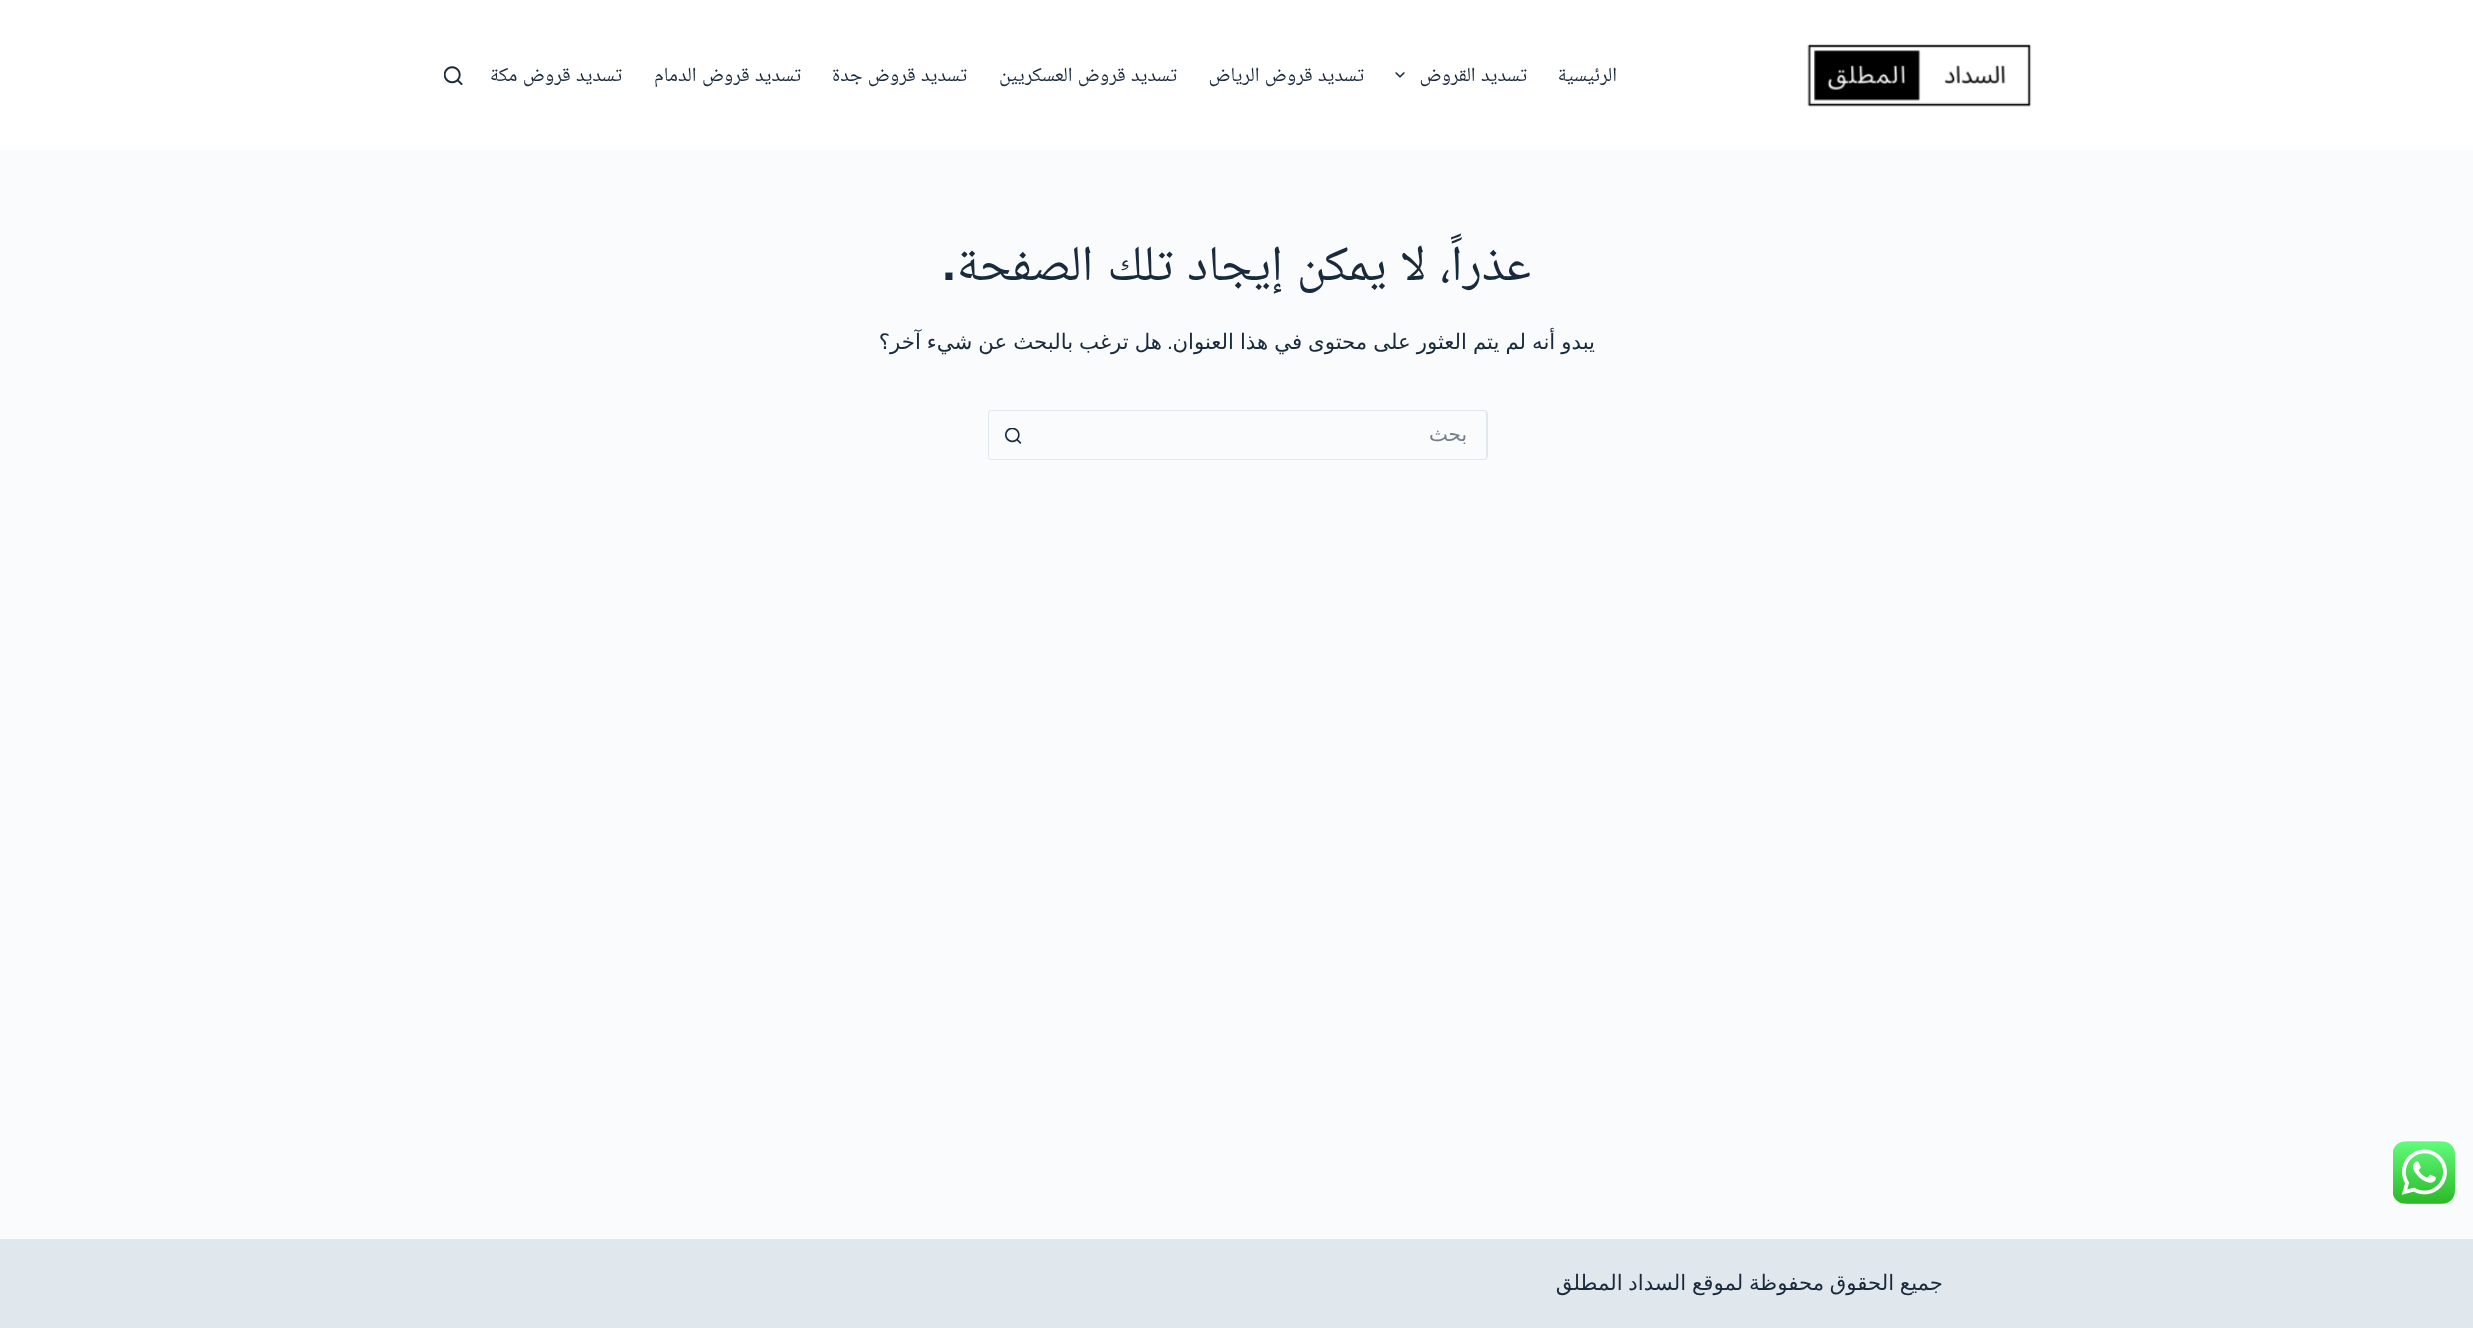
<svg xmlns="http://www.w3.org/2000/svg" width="2473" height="1328">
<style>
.a{font:20px Noto Naskh Arabic;direction:rtl;fill:#192a3d}
.b{font:50px Noto Naskh Arabic;direction:rtl;fill:#192a3d}
.c{font:bold 50px Liberation Sans;direction:rtl;fill:#192a3d}
.d{font:21.25px DejaVu Sans;direction:rtl;fill:#192a3d}
.e{font:21.25px Liberation Sans;direction:rtl;fill:#192a3d}
.f{font:20px DejaVu Sans;direction:rtl;fill:#737e89}
</style>
<rect width="100%" height="100%" fill="#fafbfc"/>
<image href="1.png" x="2393" y="1141" width="62" height="63"/>
<path fill="#fff" d="M0 0h2473v150H0z"/>
<image href="2.png" x="1807" y="44" width="225" height="63"/>
<image href="3.png" x="1395" y="72" width="10" height="6"/>
<image href="4.png" x="444" y="66" width="19" height="19"/>
<path fill="#e1e8ed" fill-rule="evenodd" d="M1038 410h446c2 0 4 2 4 4v42c0 2-2 4-4 4h-446zm0 1h446c1 0 2 1 2 3v42c0 2-1 3-2 3h-446z"/>
<path fill="#e1e8ed" fill-rule="evenodd" d="M991 410h47v50h-47c-2 0-3-2-3-4v-42c0-2 1-4 3-4zm0 1h47v48h-47c-1 0-2-1-2-3v-42c0-2 1-3 2-3z"/>
<image href="5.png" x="1005" y="428" width="16" height="16"/>
<path fill="#e1e8ed" d="M0 1239h2473v89H0z"/>
<text class="a" x="1617" y="81">الرئيسية</text>
<text class="a" x="1527" y="81" word-spacing="1">تسديد القروض</text>
<text class="a" x="1364" y="81" word-spacing="1">تسديد قروض الرياض</text>
<text class="a" x="1177" y="81" word-spacing="1">تسديد قروض العسكريين</text>
<text class="a" x="967" y="81" word-spacing="1">تسديد قروض جدة</text>
<text class="a" x="801" y="81" word-spacing="1">تسديد قروض الدمام</text>
<text class="a" x="622" y="81" word-spacing="1">تسديد قروض مكة</text>
<text class="b" x="1531" y="280" word-spacing="2.75">عذراً، لا يمكن إيجاد تلك الصفحة</text>
<text class="c" x="956" y="280">.</text>
<text class="d" x="1595" y="349" word-spacing="-0.75">يبدو أنه لم يتم العثور على محتوى في هذا العنوان</text>
<text class="e" x="1173" y="349">.</text>
<text class="d" x="1162" y="349" word-spacing="-0.75">هل ترغب بالبحث عن شيء آخر؟</text>
<text class="f" x="1467" y="441">بحث</text>
<text class="d" x="1943" y="1290" word-spacing="-1">جميع الحقوق محفوظة لموقع السداد المطلق</text>
</svg>
